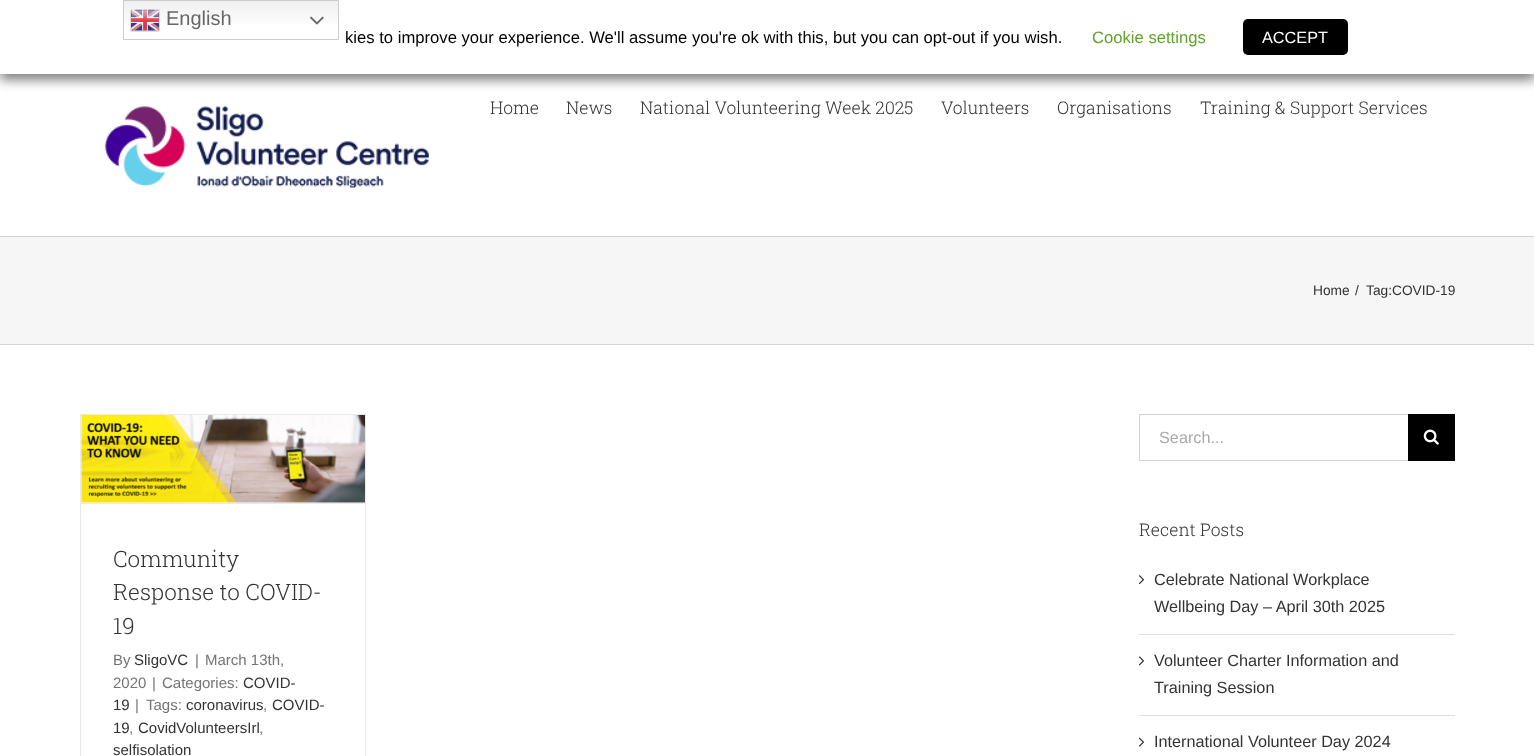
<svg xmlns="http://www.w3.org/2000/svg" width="1534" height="756">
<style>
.a{font:20px Liberation Sans;fill:#666}
.b{font:16.65px Liberation Sans;fill:#000}
.c{font:16.65px Liberation Sans;fill:#62a329}
.d{font:16.25px Liberation Sans;fill:#fff}
.e{font:300 17.5px Roboto Slab;fill:#333}
.f{font:13.75px Liberation Sans;fill:#333}
.g{font:300 22.5px Roboto Slab;fill:#333}
.h{font:15px Liberation Sans;fill:#747474}
.i{font:15px Liberation Sans;fill:#333}
.j{font:16.25px Liberation Sans;fill:#aaa9a9}
.k{font:16.25px Liberation Sans;fill:#333}
</style>
<defs>
<linearGradient id="g1" gradientUnits="userSpaceOnUse" x1="231" y1="0" x2="231" y2="40"><stop offset="0" stop-color="#efefef"/><stop offset="0.7" stop-color="#fff"/></linearGradient>
</defs>
<rect width="100%" height="100%" fill="#fff"/>
<path fill="#00000080" filter="blur(6px)" d="M0 6h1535v74H0z"/>
<path fill="#fff" d="M0 0h1534v74H0z"/>
<path fill="url(#g1)" d="M124 1h214v23H124z"/>
<path fill="none" stroke="#ccc" d="M123.5 0.5h215v39H123.5z"/>
<image href="1.png" x="130" y="9" width="30" height="23"/>
<image href="2.png" x="310" y="16" width="14" height="9"/>
<rect fill="#000" x="1243" y="19" width="105" height="36" rx="5"/>
<image href="3.png" x="104" y="106" width="325" height="82"/>
<path fill="#f6f6f6" d="M0 237h1534v107H0z"/>
<path fill="#d2d3d4" d="M0 236h1534v1H0z"/>
<path fill="#d2d3d4" d="M0 344h1534v1H0z"/>
<path fill="#ebeaea" d="M80 414h286v1H80z"/>
<path fill="#ebeaea" d="M365 414h1v342H365z"/>
<path fill="#ebeaea" d="M80 414h1v342H80z"/>
<path fill="#ebeaea" d="M81 503h284v1H81z"/>
<image href="4.png" x="81" y="415" width="284" height="88"/>
<path fill="#d2d2d2" d="M1139 414h269v1H1139z"/>
<path fill="#d2d2d2" d="M1139 460h269v1H1139z"/>
<path fill="#d2d2d2" d="M1139 414h1v47H1139z"/>
<path fill="#000" d="M1408 414h47v47H1408z"/>
<image href="5.png" x="1423" y="429" width="16" height="16"/>
<path fill="#e0dede" d="M1139 634h316v1H1139z"/>
<image href="6.png" x="1138" y="575" width="7" height="10"/>
<path fill="#e0dede" d="M1139 715h316v1H1139z"/>
<image href="7.png" x="1138" y="656" width="7" height="10"/>
<image href="8.png" x="1138" y="737" width="7" height="10"/>
<text class="a" x="166" y="25">English</text>
<text class="b" x="345" y="43">kies to improve your experience. We'll assume you're ok with this, but you can opt-out if you wish.</text>
<text class="c" x="1092" y="43">Cookie settings</text>
<text class="d" x="1262" y="43">ACCEPT</text>
<text class="e" x="490" y="114">Home</text>
<text class="e" x="566" y="114">News</text>
<text class="e" x="640" y="114">National Volunteering Week 2025</text>
<text class="e" x="941" y="114">Volunteers</text>
<text class="e" x="1057" y="114">Organisations</text>
<text class="e" x="1200" y="114">Training &amp; Support Services</text>
<text class="f" x="1313" y="295">Home</text>
<text class="f" x="1355" y="295">/</text>
<text class="f" x="1366" y="295">Tag:COVID-19</text>
<text class="g" x="113" y="567">Community</text>
<text class="g" x="113" y="600">Response to COVID-</text>
<text class="g" x="113" y="634">19</text>
<text class="h" x="113" y="665">By</text>
<text class="i" x="134" y="665">SligoVC</text>
<text class="h" x="195" y="665">|</text>
<text class="h" x="205" y="665">March 13th,</text>
<text class="h" x="113" y="688">2020</text>
<text class="h" x="152" y="688">|</text>
<text class="h" x="162" y="688">Categories:</text>
<text class="i" x="243" y="688">COVID-</text>
<text class="i" x="113" y="710">19</text>
<text class="h" x="135" y="710">|</text>
<text class="h" x="146" y="710">Tags:</text>
<text class="i" x="186" y="710">coronavirus</text>
<text class="h" x="263" y="710">,</text>
<text class="i" x="272" y="710">COVID-</text>
<text class="i" x="113" y="733">19</text>
<text class="h" x="129" y="733">,</text>
<text class="i" x="138" y="733">CovidVolunteersIrl</text>
<text class="h" x="259" y="733">,</text>
<text class="i" x="113" y="755">selfisolation</text>
<text class="j" x="1159" y="443">Search...</text>
<text class="e" x="1139" y="536">Recent Posts</text>
<text class="k" x="1154" y="585">Celebrate National Workplace</text>
<text class="k" x="1154" y="612">Wellbeing Day – April 30th 2025</text>
<text class="k" x="1154" y="666">Volunteer Charter Information and</text>
<text class="k" x="1154" y="693">Training Session</text>
<text class="k" x="1154" y="747">International Volunteer Day 2024</text>
</svg>
